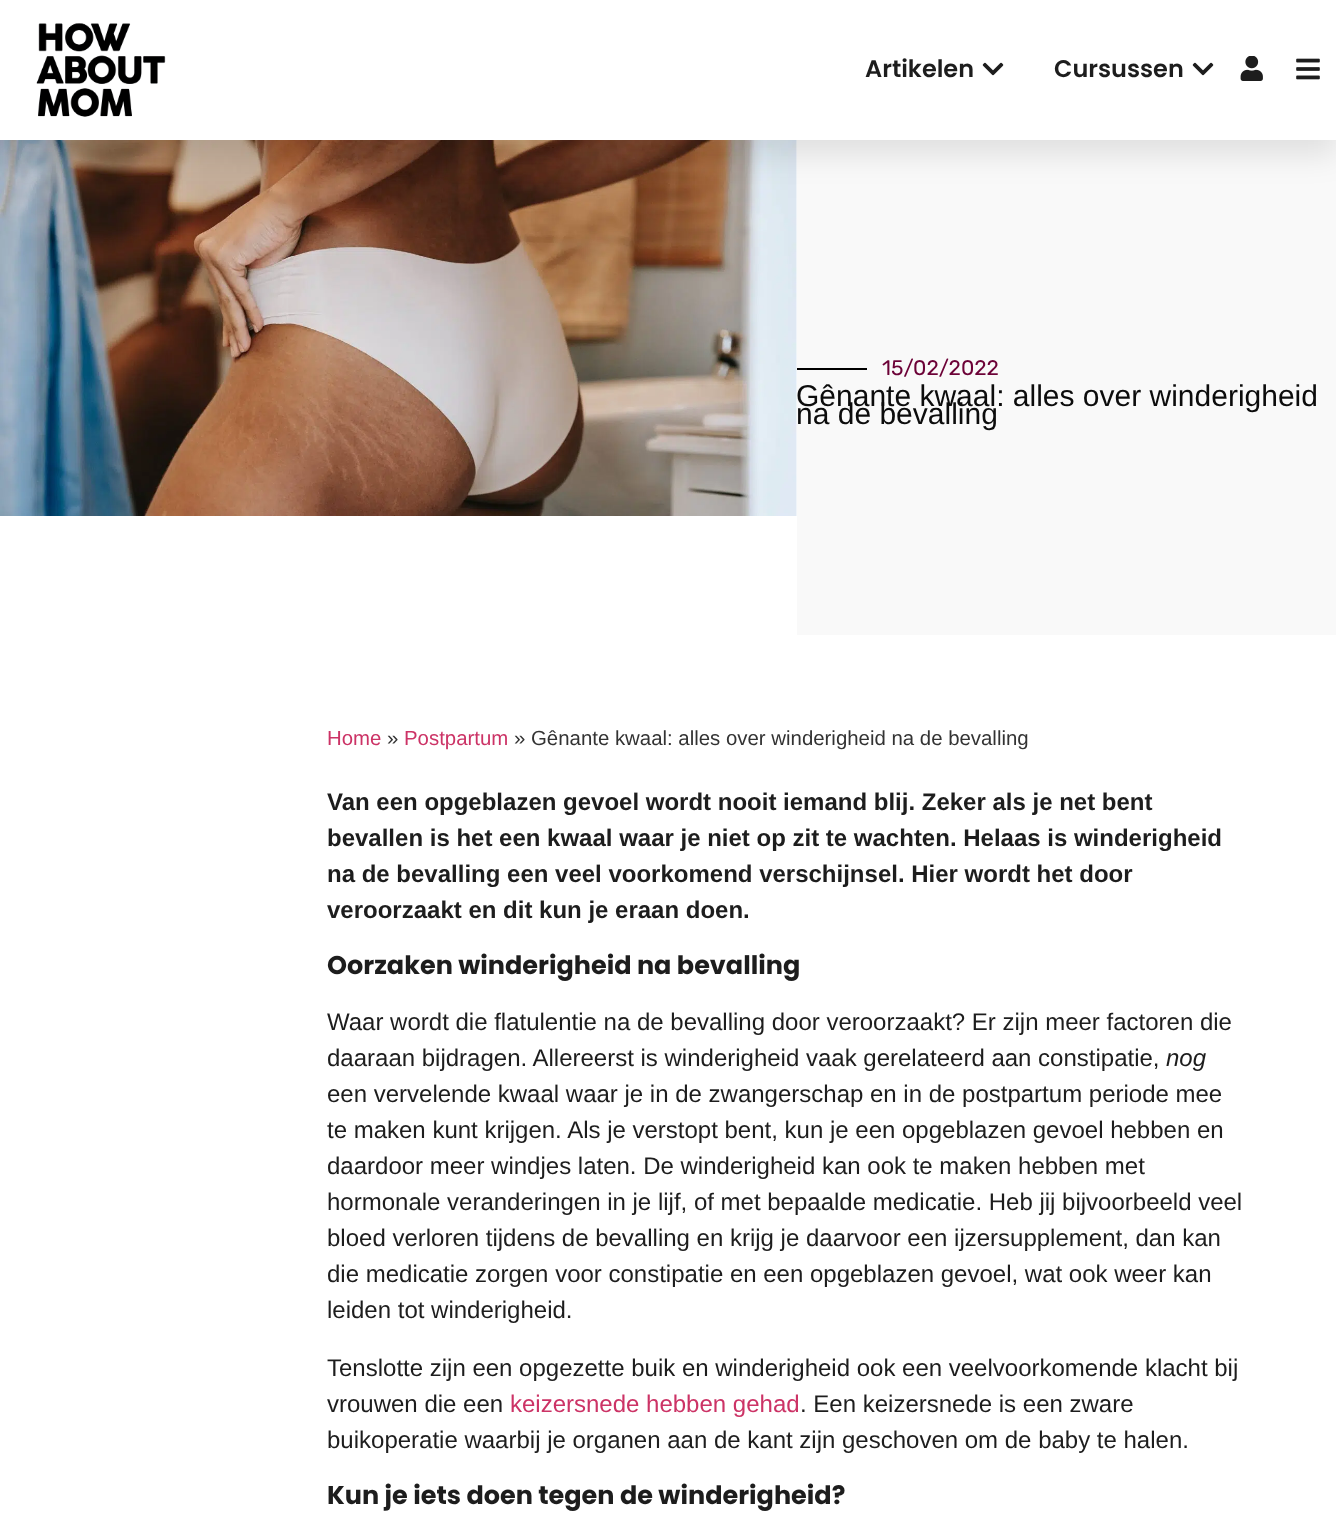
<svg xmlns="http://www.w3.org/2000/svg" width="1336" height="1536">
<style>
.a{font:600 24px Poppins;fill:#1d1d1d}
.b{font:21px Rubik;fill:#6c0237}
.c{font:30px Liberation Sans;fill:#0c0c0c}
.d{font:20.4px Liberation Sans;fill:#c36}
.e{font:20.4px Liberation Sans;fill:#333}
.f{font:bold 24px Liberation Sans;fill:#1d1d1d}
.g{font:bold 25.5px Poppins;fill:#1d1d1d}
.h{font:24px Liberation Sans;fill:#1d1d1d}
.i{font:italic 24px Liberation Sans;fill:#1d1d1d}
.j{font:24px Liberation Sans;fill:#c36}
</style>
<rect width="100%" height="100%" fill="#fff"/>
<image href="5.png" x="0" y="140" width="797" height="376"/>
<path fill="#f9f9f9" d="M797 140h539v495H797z"/>
<path fill="#0000001a" filter="blur(15px)" d="M0 15h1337v140H0z"/>
<path fill="#fff" d="M0 0h1336v140H0z"/>
<image href="1.png" x="36" y="23" width="130" height="94"/>
<image href="2.png" x="982" y="62" width="22" height="14"/>
<image href="2.png" x="1192" y="62" width="22" height="14"/>
<image href="3.png" x="1240" y="56" width="23" height="25"/>
<image href="4.png" x="1296" y="58" width="24" height="22"/>
<path fill="#000" d="M797 368h70v2H797z"/>
<text class="a" x="865" y="77">Artikelen</text>
<text class="a" x="1054" y="77">Cursussen</text>
<text class="b" x="882" y="375">15/02/2022</text>
<text class="c" x="796" y="406">Gênante kwaal: alles over winderigheid</text>
<text class="c" x="796" y="424">na de bevalling</text>
<text class="d" x="327" y="745">Home</text>
<text class="e" x="387" y="745">»</text>
<text class="d" x="404" y="745">Postpartum</text>
<text class="e" x="514" y="745">» Gênante kwaal: alles over winderigheid na de bevalling</text>
<text class="f" x="327" y="810">Van een opgeblazen gevoel wordt nooit iemand blij. Zeker als je net bent</text>
<text class="f" x="327" y="846">bevallen is het een kwaal waar je niet op zit te wachten. Helaas is winderigheid</text>
<text class="f" x="327" y="882">na de bevalling een veel voorkomend verschijnsel. Hier wordt het door</text>
<text class="f" x="327" y="918">veroorzaakt en dit kun je eraan doen.</text>
<text class="g" x="327" y="974">Oorzaken winderigheid na bevalling</text>
<text class="h" x="327" y="1030">Waar wordt die flatulentie na de bevalling door veroorzaakt? Er zijn meer factoren die</text>
<text class="h" x="327" y="1066">daaraan bijdragen. Allereerst is winderigheid vaak gerelateerd aan constipatie,</text>
<text class="i" x="1166" y="1066">nog</text>
<text class="h" x="327" y="1102">een vervelende kwaal waar je in de zwangerschap en in de postpartum periode mee</text>
<text class="h" x="327" y="1138">te maken kunt krijgen. Als je verstopt bent, kun je een opgeblazen gevoel hebben en</text>
<text class="h" x="327" y="1174">daardoor meer windjes laten. De winderigheid kan ook te maken hebben met</text>
<text class="h" x="327" y="1210">hormonale veranderingen in je lijf, of met bepaalde medicatie. Heb jij bijvoorbeeld veel</text>
<text class="h" x="327" y="1246">bloed verloren tijdens de bevalling en krijg je daarvoor een ijzersupplement, dan kan</text>
<text class="h" x="327" y="1282">die medicatie zorgen voor constipatie en een opgeblazen gevoel, wat ook weer kan</text>
<text class="h" x="327" y="1318">leiden tot winderigheid.</text>
<text class="h" x="327" y="1376">Tenslotte zijn een opgezette buik en winderigheid ook een veelvoorkomende klacht bij</text>
<text class="h" x="327" y="1412">vrouwen die een</text>
<text class="j" x="510" y="1412">keizersnede hebben gehad</text>
<text class="h" x="800" y="1412">. Een keizersnede is een zware</text>
<text class="h" x="327" y="1448">buikoperatie waarbij je organen aan de kant zijn geschoven om de baby te halen.</text>
<text class="g" x="327" y="1504">Kun je iets doen tegen de winderigheid?</text>
</svg>
